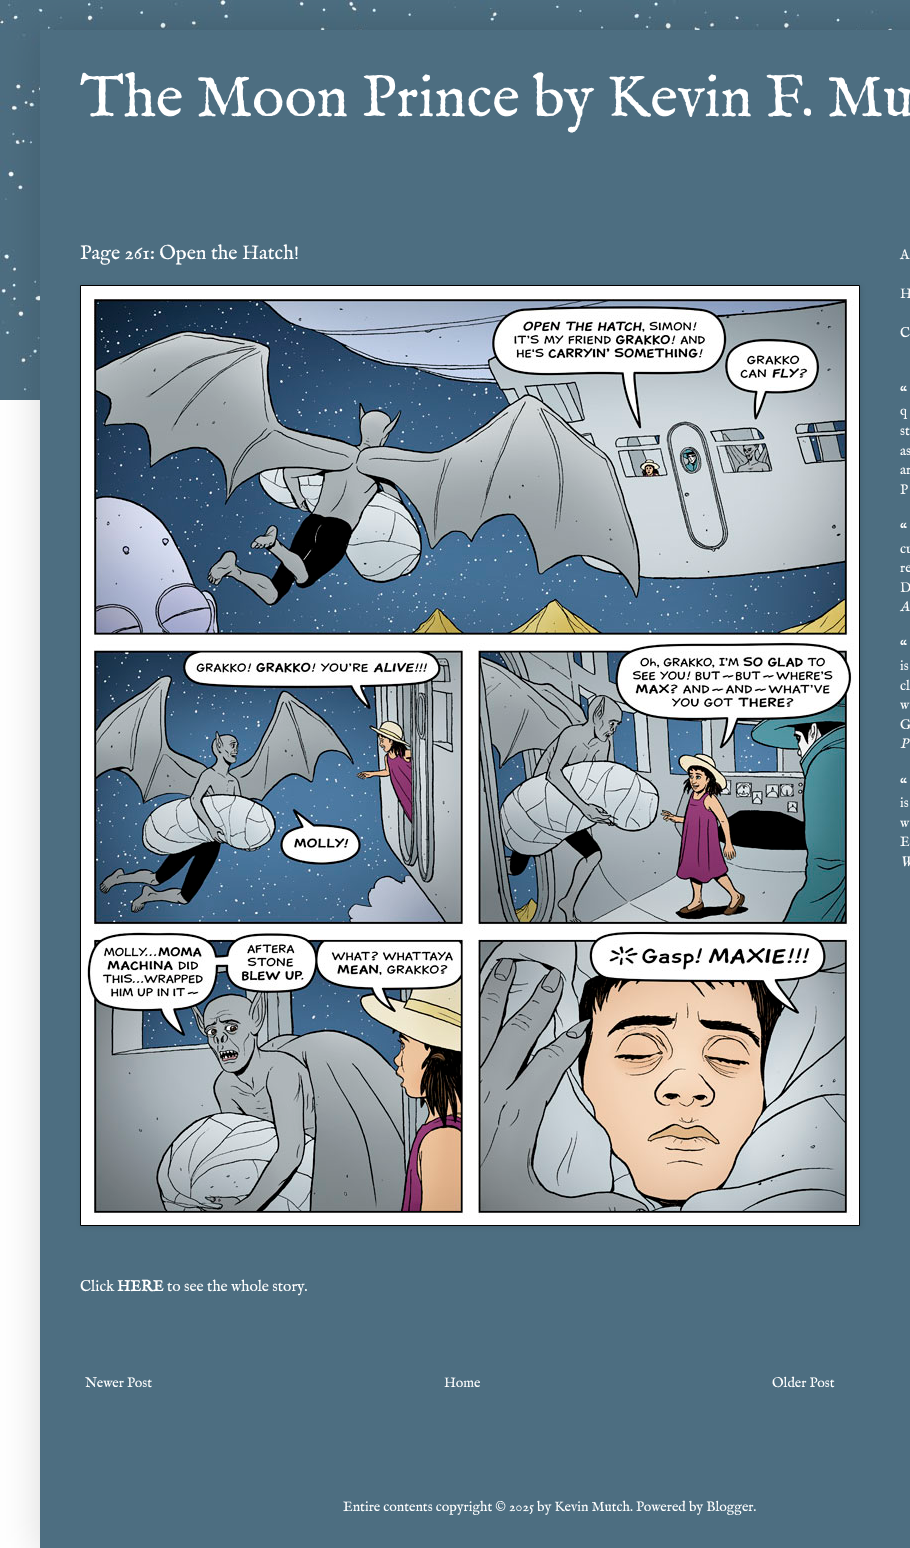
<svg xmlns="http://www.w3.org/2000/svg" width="910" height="1548">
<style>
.a{font:60px IM FELL English;fill:#fff}
.b{font:20px IM FELL English;fill:#fff}
.c{font:15.5px IM FELL English;fill:#fff}
.d{font:bold 15.5px IM FELL English;fill:#fff}
.e{font:14px IM FELL English;fill:#fff}
.f{font:italic 14px IM FELL English;fill:#fff}
</style>
<rect width="100%" height="100%" fill="#fff"/>
<image href="1.png" x="0" y="0" width="910" height="400"/>
<path fill="#00000026" filter="blur(20px)" d="M40 30h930v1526H40z"/>
<path fill="#4d6e81" d="M40 30h870v1518H40z"/>
<path fill="#0000001a" filter="blur(2.5px)" d="M81 286h780v941H81z"/>
<path fill="#fff" stroke="#000" d="M80.5 285.5h779v940H80.5z"/>
<image href="2.png" x="87" y="299" width="767" height="920"/>
<text class="a" x="80" y="116">The Moon Prince by Kevin F. Mu</text>
<text class="b" x="80" y="259">Page 261: Open the Hatch!</text>
<text class="c" x="80" y="1291">Click</text>
<text class="d" x="117" y="1291">HERE</text>
<text class="c" x="167" y="1291">to see the whole story.</text>
<text class="e" x="85" y="1387">Newer Post</text>
<text class="e" x="444" y="1387">Home</text>
<text class="e" x="772" y="1387">Older Post</text>
<text class="e" x="900" y="259">A</text>
<text class="e" x="900" y="298">H</text>
<text class="e" x="900" y="337">C</text>
<text class="e" x="900" y="396">“</text>
<text class="e" x="900" y="415">q</text>
<text class="e" x="900" y="435">st</text>
<text class="e" x="900" y="455">as</text>
<text class="e" x="900" y="474">ar</text>
<text class="e" x="900" y="494">P</text>
<text class="e" x="900" y="533">“</text>
<text class="e" x="900" y="553">cu</text>
<text class="e" x="900" y="572">re</text>
<text class="e" x="900" y="592">D</text>
<text class="f" x="900" y="611">A</text>
<text class="e" x="900" y="650">“</text>
<text class="e" x="900" y="670">is</text>
<text class="e" x="900" y="690">cl</text>
<text class="e" x="900" y="709">w</text>
<text class="e" x="900" y="729">G</text>
<text class="f" x="900" y="748">P</text>
<text class="e" x="900" y="788">“</text>
<text class="e" x="900" y="807">is</text>
<text class="e" x="900" y="827">w</text>
<text class="e" x="900" y="846">E</text>
<text class="f" x="900" y="866">W</text>
<text class="e" x="343" y="1511">Entire contents copyright © 2025 by Kevin Mutch. Powered by Blogger.</text>
</svg>
